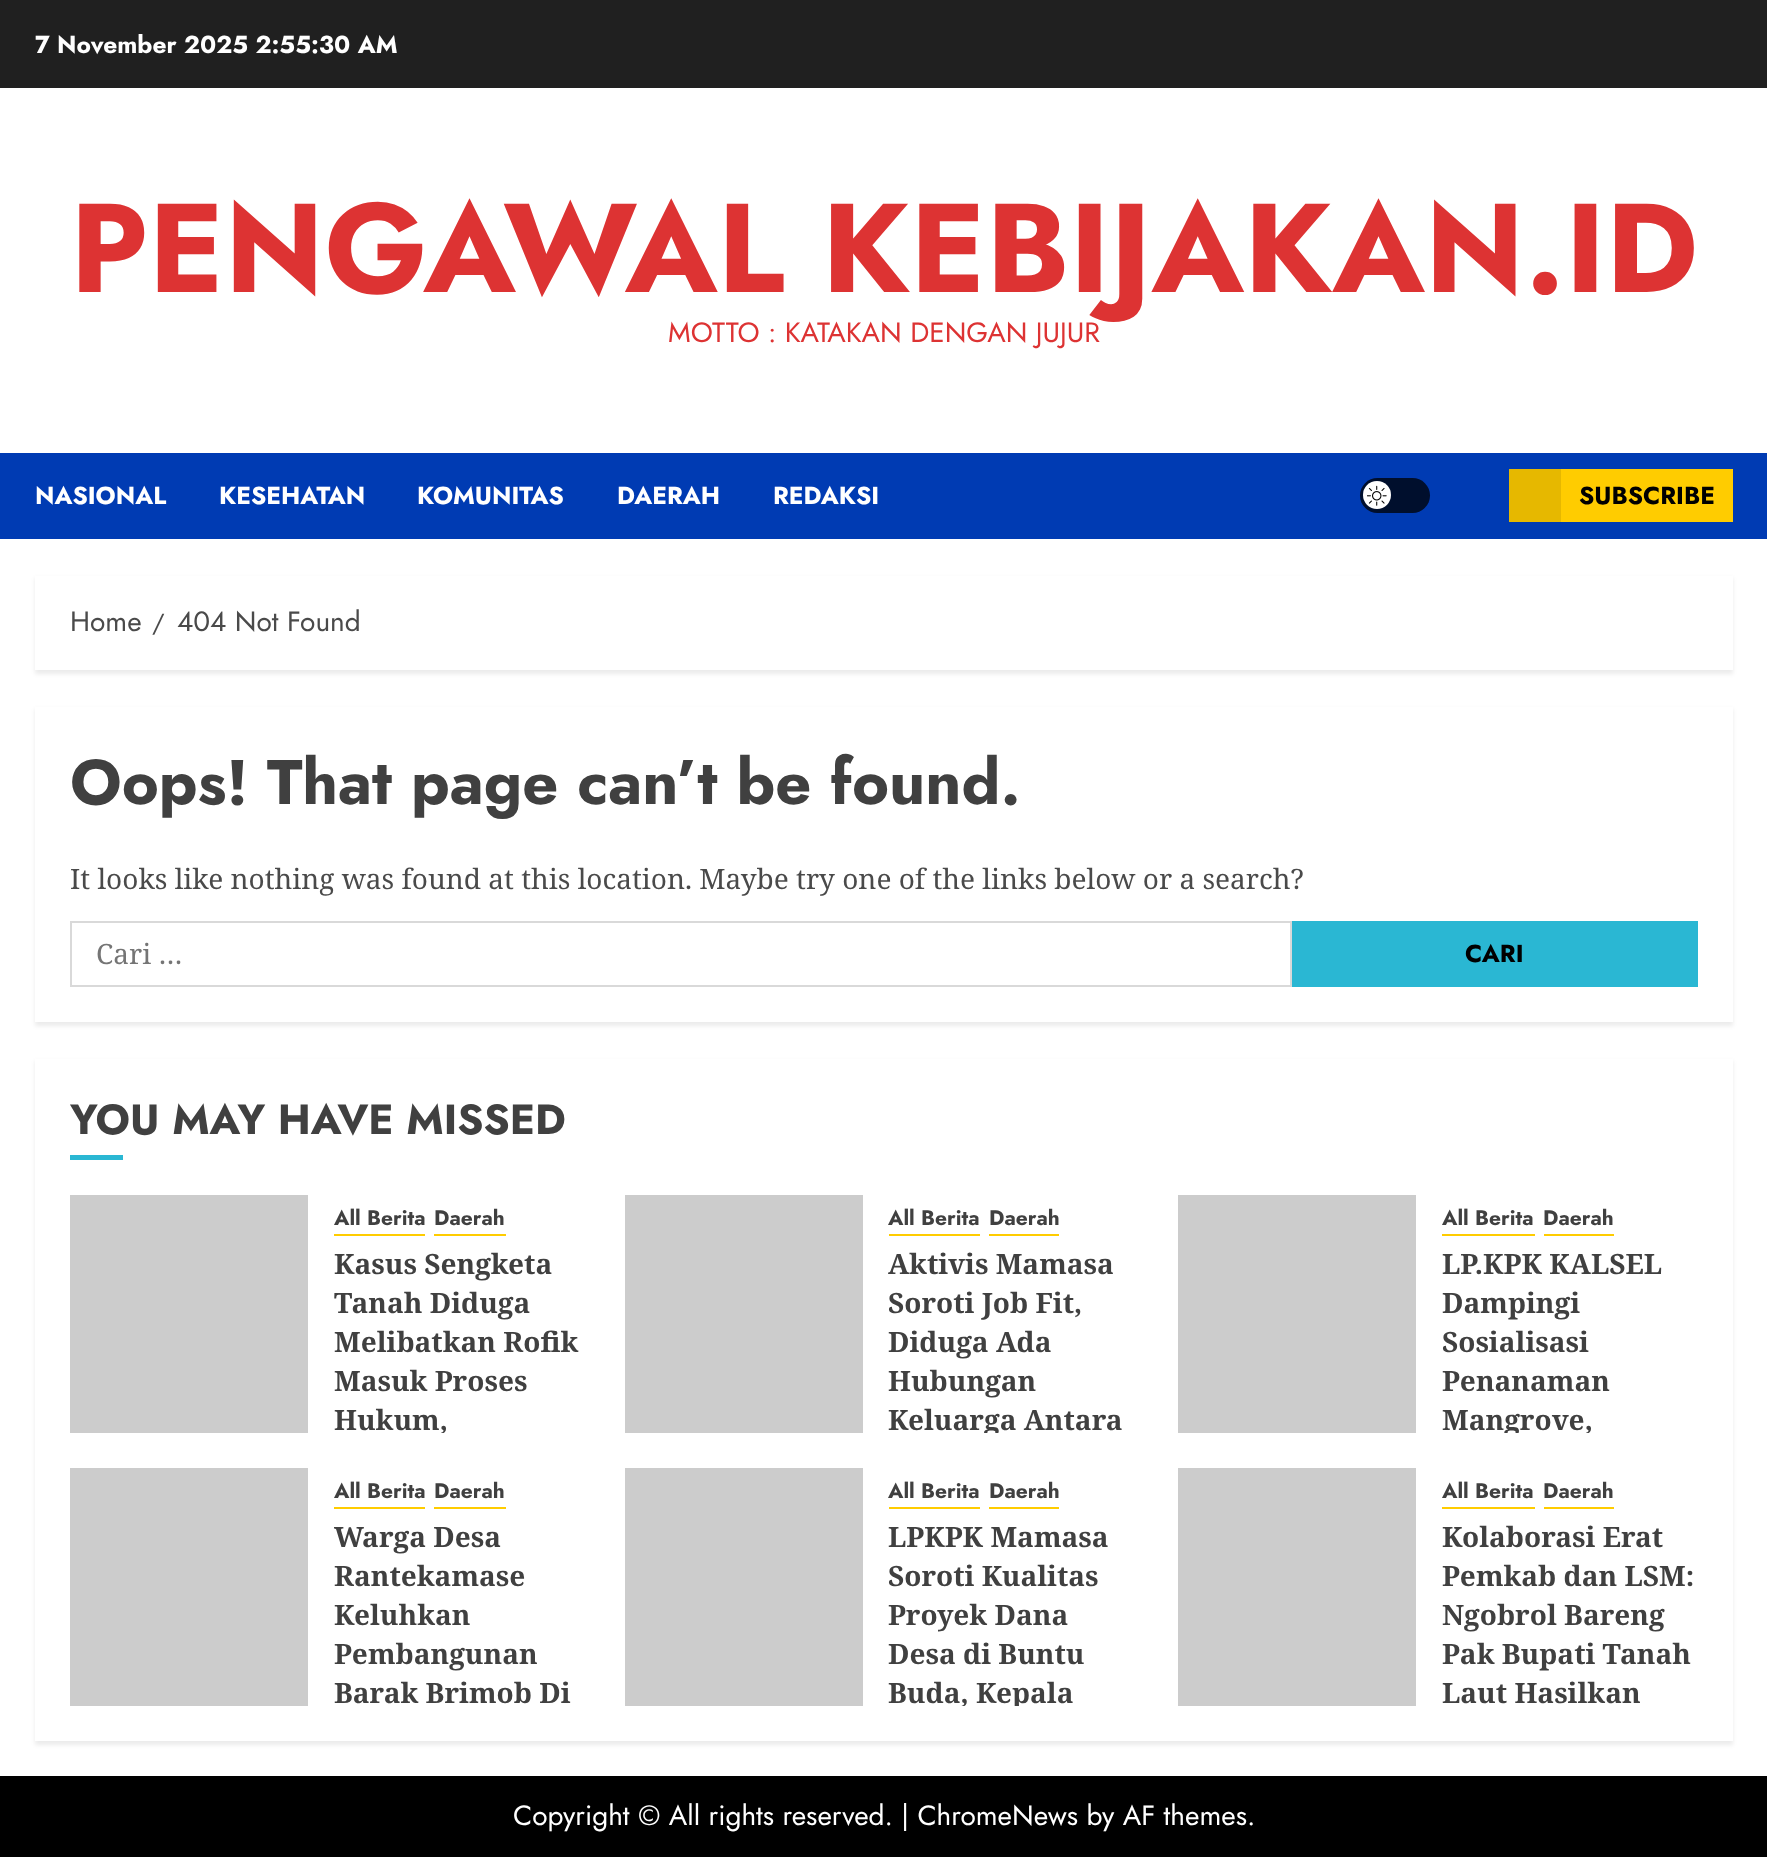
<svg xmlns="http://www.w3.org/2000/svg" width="1767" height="1862">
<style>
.a{font:bold 24.5px Jost;fill:#fff}
.b{font:bold 126px Jost;fill:#d33}
.c{font:28px Jost;fill:#d33}
.d{font:bold 24.5px Jost;fill:#000}
.e{font:28px Jost;fill:#4a4a4a}
.f{font:24.5px Jost;fill:#4a4a4a}
.g{font:bold 63px Jost;fill:#404040}
.h{font:28px Noto Serif;fill:#4a4a4a}
.i{font:28px Noto Serif;fill:#757575}
.j{font:bold 42px Jost;fill:#404040}
.k{font:bold 21px Jost;fill:#404040}
.l{font:bold 28px Noto Serif;fill:#404040}
.m{font:28px Jost;fill:#fff}
</style>
<defs>
<clipPath id="clip1"><path d="M308 1195h282v238H308z"/></clipPath>
<clipPath id="clip2"><path d="M863 1195h280v238H863z"/></clipPath>
<clipPath id="clip3"><path d="M1416 1195h282v238H1416z"/></clipPath>
<clipPath id="clip4"><path d="M863 1468h280v238H863z"/></clipPath>
</defs>
<rect width="100%" height="100%" fill="#fff"/>
<path fill="#202020" d="M0 0h1767v88H0z"/>
<path fill="#003bb3" d="M0 453h1767v86H0z"/>
<rect fill="#000f2d" x="1360" y="478" width="70" height="35" rx="17.5"/>
<circle fill="#fff" cx="1377" cy="495" r="14"/>
<image href="1.png" x="1367" y="485" width="20" height="21"/>
<path fill="#fc0" d="M1561 469h172v53H1561z"/>
<path fill="#e6b800" d="M1509 469h52v53H1509z"/>
<path fill="#00000014" filter="blur(2px)" d="M35 578h1698v96H35z"/>
<path fill="#fff" d="M35 576h1698v94H35z"/>
<path fill="#00000014" filter="blur(2px)" d="M35 709h1698v317H35z"/>
<path fill="#fff" d="M35 707h1698v315H35z"/>
<path fill="none" stroke="#d9d9d9" stroke-width="2" d="M71 922h1220v64H71z"/>
<path fill="#2ab7d3" d="M1292 921h406v66H1292z"/>
<path fill="#00000014" filter="blur(2px)" d="M35 1061h1698v684H35z"/>
<path fill="#fff" d="M35 1059h1698v682H35z"/>
<path fill="#2ab7d3" d="M70 1155h53v5H70z"/>
<path fill="#ccc" d="M70 1195h238v238H70z"/>
<path fill="#fc0" d="M334 1234h91v2H334z"/>
<path fill="#fc0" d="M434 1234h72v2H434z"/>
<path fill="#ccc" d="M625 1195h238v238H625z"/>
<path fill="#fc0" d="M889 1234h91v2H889z"/>
<path fill="#fc0" d="M989 1234h70v2H989z"/>
<path fill="#ccc" d="M1178 1195h238v238H1178z"/>
<path fill="#fc0" d="M1442 1234h93v2H1442z"/>
<path fill="#fc0" d="M1544 1234h70v2H1544z"/>
<path fill="#ccc" d="M70 1468h238v238H70z"/>
<path fill="#fc0" d="M334 1507h91v2H334z"/>
<path fill="#fc0" d="M434 1507h72v2H434z"/>
<path fill="#ccc" d="M625 1468h238v238H625z"/>
<path fill="#fc0" d="M889 1507h91v2H889z"/>
<path fill="#fc0" d="M989 1507h70v2H989z"/>
<path fill="#ccc" d="M1178 1468h238v238H1178z"/>
<path fill="#fc0" d="M1442 1507h93v2H1442z"/>
<path fill="#fc0" d="M1544 1507h70v2H1544z"/>
<path fill="#000" d="M0 1776h1767v81H0z"/>
<text class="a" x="35" y="53">7 November 2025 2:55:30 AM</text>
<text class="b" x="70" y="292">PENGAWAL KEBIJAKAN.ID</text>
<text class="c" x="668" y="342">MOTTO : KATAKAN DENGAN JUJUR</text>
<text class="a" x="35" y="504">NASIONAL</text>
<text class="a" x="219" y="504">KESEHATAN</text>
<text class="a" x="417" y="504">KOMUNITAS</text>
<text class="a" x="617" y="504">DAERAH</text>
<text class="a" x="773" y="504">REDAKSI</text>
<text class="d" x="1579" y="504">SUBSCRIBE</text>
<text class="e" x="70" y="631">Home</text>
<text class="f" x="152" y="631">/</text>
<text class="e" x="177" y="631">404 Not Found</text>
<text class="g" x="70" y="804">Oops! That page can’t be found.</text>
<text class="h" x="70" y="889">It looks like nothing was found at this location. Maybe try one of the links below or a search?</text>
<text class="i" x="96" y="964">Cari …</text>
<text class="d" x="1465" y="962">CARI</text>
<text class="j" x="70" y="1134">YOU MAY HAVE MISSED</text>
<text class="k" x="334" y="1225">All Berita</text>
<text class="k" x="434" y="1225">Daerah</text>
<text class="l" x="334" y="1274">Kasus Sengketa</text>
<text class="l" x="334" y="1313">Tanah Diduga</text>
<text class="l" x="334" y="1352">Melibatkan Rofik</text>
<text class="l" x="334" y="1391">Masuk Proses</text>
<g clip-path="url(#clip1)">
<text class="l" x="334" y="1430">Hukum,</text>
</g>
<text class="k" x="888" y="1225">All Berita</text>
<text class="k" x="989" y="1225">Daerah</text>
<text class="l" x="888" y="1274">Aktivis Mamasa</text>
<text class="l" x="888" y="1313">Soroti Job Fit,</text>
<text class="l" x="888" y="1352">Diduga Ada</text>
<text class="l" x="888" y="1391">Hubungan</text>
<g clip-path="url(#clip2)">
<text class="l" x="888" y="1430">Keluarga Antara</text>
</g>
<text class="k" x="1442" y="1225">All Berita</text>
<text class="k" x="1543" y="1225">Daerah</text>
<text class="l" x="1442" y="1274">LP.KPK KALSEL</text>
<text class="l" x="1442" y="1313">Dampingi</text>
<text class="l" x="1442" y="1352">Sosialisasi</text>
<text class="l" x="1442" y="1391">Penanaman</text>
<g clip-path="url(#clip3)">
<text class="l" x="1442" y="1430">Mangrove,</text>
</g>
<text class="k" x="334" y="1498">All Berita</text>
<text class="k" x="434" y="1498">Daerah</text>
<text class="l" x="334" y="1547">Warga Desa</text>
<text class="l" x="334" y="1586">Rantekamase</text>
<text class="l" x="334" y="1625">Keluhkan</text>
<text class="l" x="334" y="1664">Pembangunan</text>
<text class="l" x="334" y="1703">Barak Brimob Di</text>
<text class="k" x="888" y="1498">All Berita</text>
<text class="k" x="989" y="1498">Daerah</text>
<text class="l" x="888" y="1547">LPKPK Mamasa</text>
<text class="l" x="888" y="1586">Soroti Kualitas</text>
<text class="l" x="888" y="1625">Proyek Dana</text>
<text class="l" x="888" y="1664">Desa di Buntu</text>
<g clip-path="url(#clip4)">
<text class="l" x="888" y="1703">Buda, Kepala</text>
</g>
<text class="k" x="1442" y="1498">All Berita</text>
<text class="k" x="1543" y="1498">Daerah</text>
<text class="l" x="1442" y="1547">Kolaborasi Erat</text>
<text class="l" x="1442" y="1586">Pemkab dan LSM:</text>
<text class="l" x="1442" y="1625">Ngobrol Bareng</text>
<text class="l" x="1442" y="1664">Pak Bupati Tanah</text>
<text class="l" x="1442" y="1703">Laut Hasilkan</text>
<text class="m" x="513" y="1825">Copyright © All rights reserved. | ChromeNews by AF themes.</text>
</svg>
